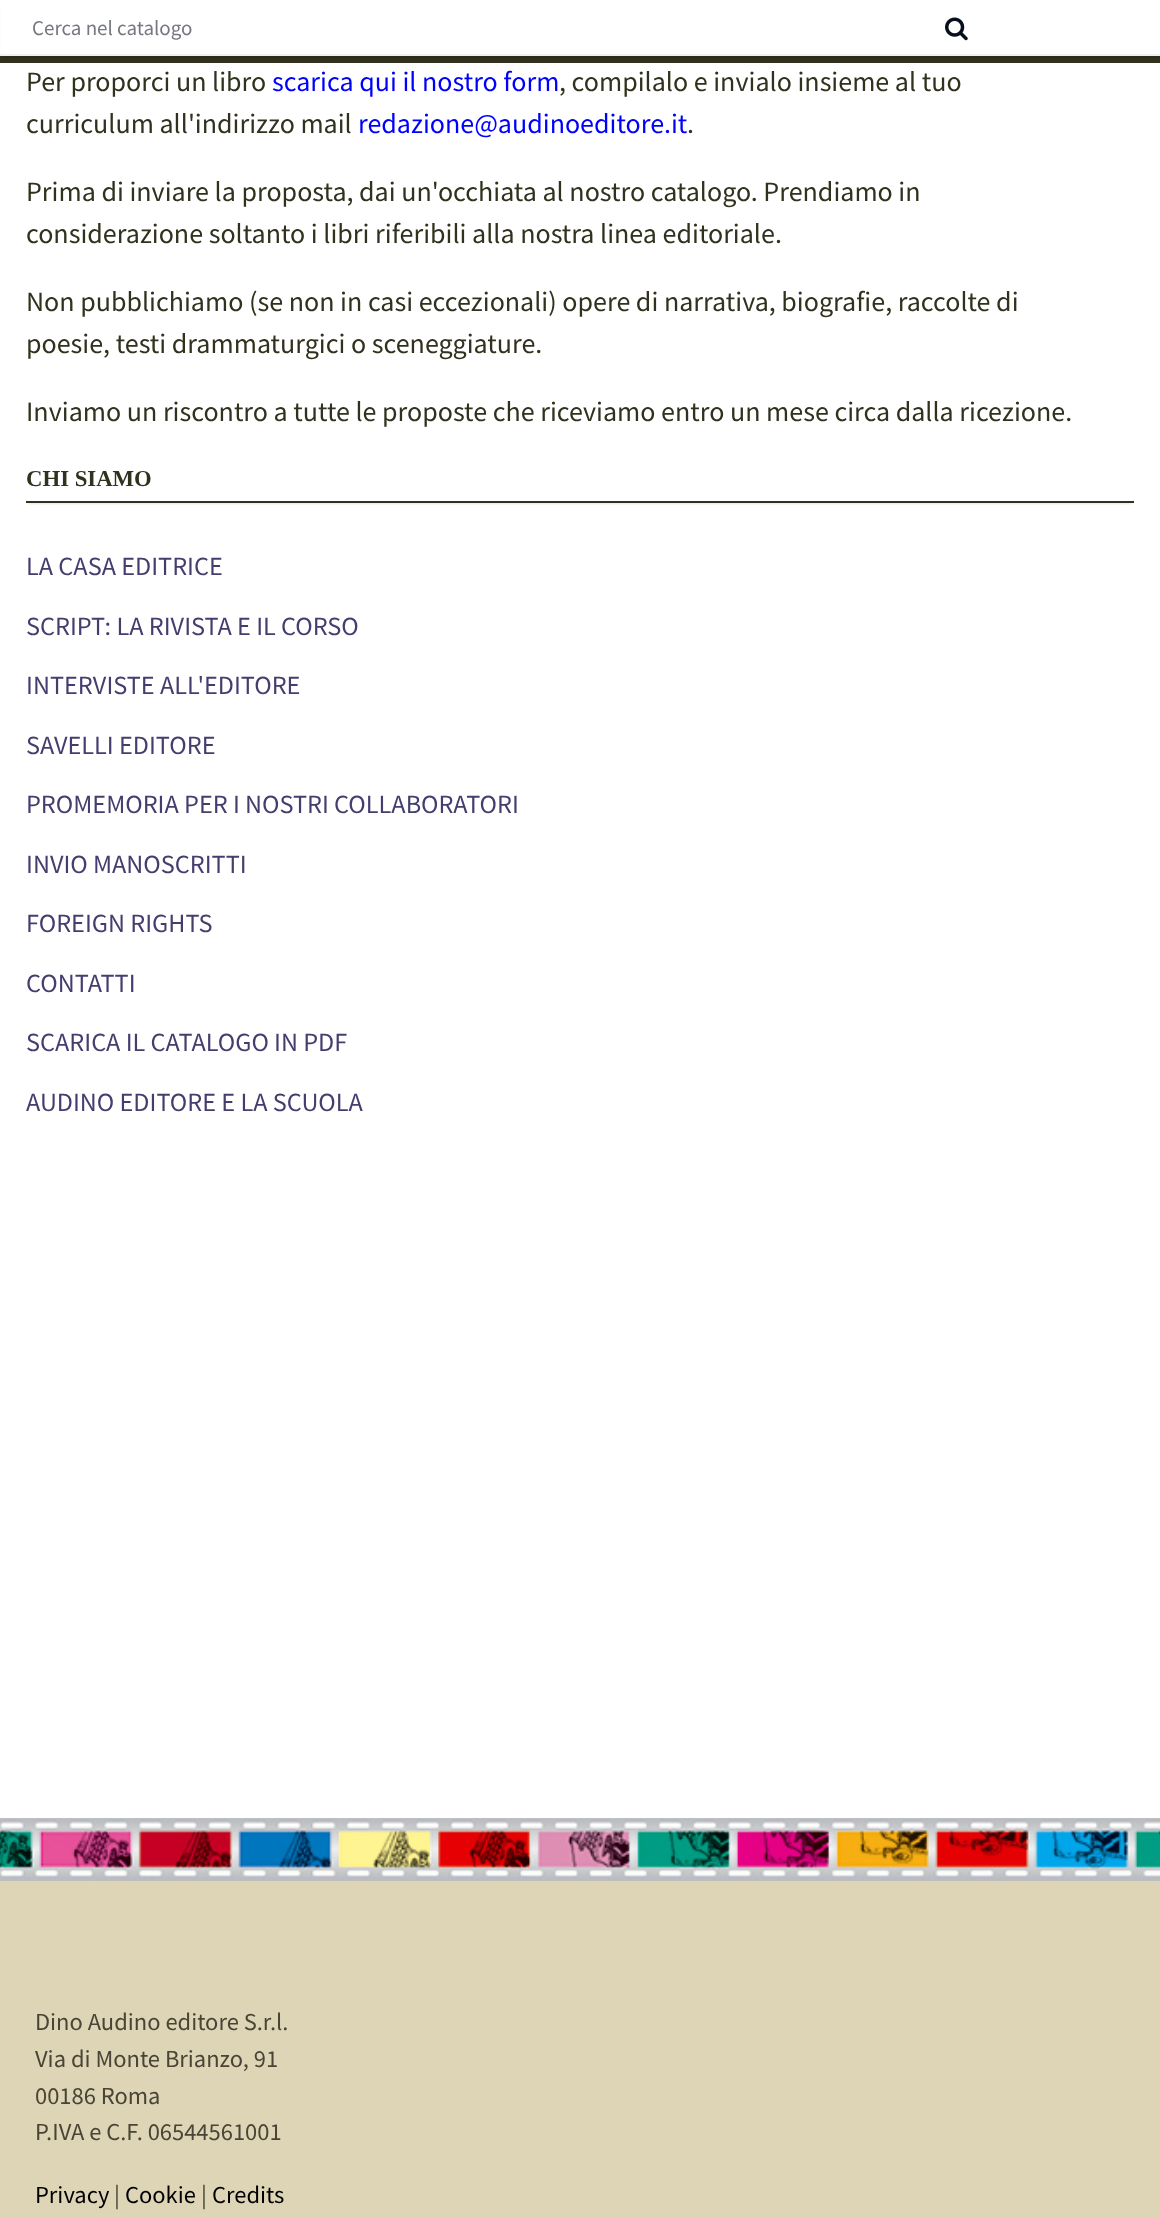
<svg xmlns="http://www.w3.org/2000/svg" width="1160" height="2218">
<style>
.a{font:21px Source Sans Pro;fill:#75797f}
.b{font:28px Source Sans Pro;fill:#31311e}
.c{font:28px Source Sans Pro;fill:#00f}
.d{font:bold 22.75px Liberation Serif;fill:#31311e}
.e{font:26.25px Source Sans Pro;fill:#443e6f}
.f{font:24.5px Source Sans Pro;fill:#494435}
.g{font:24.5px Source Sans Pro;fill:#000}
</style>
<defs>
<clipPath id="clip1"><path d="M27 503h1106v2H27z"/></clipPath>
</defs>
<rect width="100%" height="100%" fill="#fff"/>
<path fill="#31311e" d="M0 56h1160v7H0z"/>
<path fill="#0000001a" filter="blur(1px)" d="M2 5h1157v53H2z"/>
<path fill="#fff" d="M1 4h1159v50H1z"/>
<path fill="#f1f2f5" d="M0 54h1160v2H0z"/>
<image href="1.png" x="945" y="17" width="23" height="24"/>
<g clip-path="url(#clip1)">
<path fill="#0000001a" filter="blur(1px)" d="M28 464h1104v40H28z"/>
</g>
<path fill="#31311e" d="M26 501h1108v2H26z"/>
<path fill="#ded5b7" d="M0 1881h1160v337H0z"/>
<image href="2.png" x="0" y="1818" width="1160" height="63"/>
<text class="a" x="32" y="35">Cerca nel catalogo</text>
<text class="b" x="26" y="91">Per proporci un libro</text>
<text class="c" x="272" y="91">scarica qui il nostro form</text>
<text class="b" x="559" y="91">, compilalo e invialo insieme al tuo</text>
<text class="b" x="26" y="133">curriculum all'indirizzo mail</text>
<text class="c" x="358" y="133">redazione@audinoeditore.it</text>
<text class="b" x="687" y="133">.</text>
<text class="b" x="26" y="201">Prima di inviare la proposta, dai un'occhiata al nostro catalogo. Prendiamo in</text>
<text class="b" x="26" y="243">considerazione soltanto i libri riferibili alla nostra linea editoriale.</text>
<text class="b" x="26" y="311">Non pubblichiamo (se non in casi eccezionali) opere di narrativa, biografie, raccolte di</text>
<text class="b" x="26" y="353">poesie, testi drammaturgici o sceneggiature.</text>
<text class="b" x="26" y="421">Inviamo un riscontro a tutte le proposte che riceviamo entro un mese circa dalla ricezione.</text>
<text class="d" x="26" y="486">CHI SIAMO</text>
<text class="e" x="26" y="575">LA CASA EDITRICE</text>
<text class="e" x="26" y="635">SCRIPT: LA RIVISTA E IL CORSO</text>
<text class="e" x="26" y="694">INTERVISTE ALL'EDITORE</text>
<text class="e" x="26" y="754">SAVELLI EDITORE</text>
<text class="e" x="26" y="813">PROMEMORIA PER I NOSTRI COLLABORATORI</text>
<text class="e" x="26" y="873">INVIO MANOSCRITTI</text>
<text class="e" x="26" y="932">FOREIGN RIGHTS</text>
<text class="e" x="26" y="992">CONTATTI</text>
<text class="e" x="26" y="1051">SCARICA IL CATALOGO IN PDF</text>
<text class="e" x="26" y="1111">AUDINO EDITORE E LA SCUOLA</text>
<text class="f" x="35" y="2030">Dino Audino editore S.r.l.</text>
<text class="f" x="35" y="2067">Via di Monte Brianzo, 91</text>
<text class="f" x="35" y="2104">00186 Roma</text>
<text class="f" x="35" y="2140">P.IVA e C.F. 06544561001</text>
<text class="g" x="35" y="2203">Privacy</text>
<text class="f" x="114" y="2203">|</text>
<text class="g" x="125" y="2203">Cookie</text>
<text class="f" x="201" y="2203">|</text>
<text class="g" x="212" y="2203">Credits</text>
</svg>
